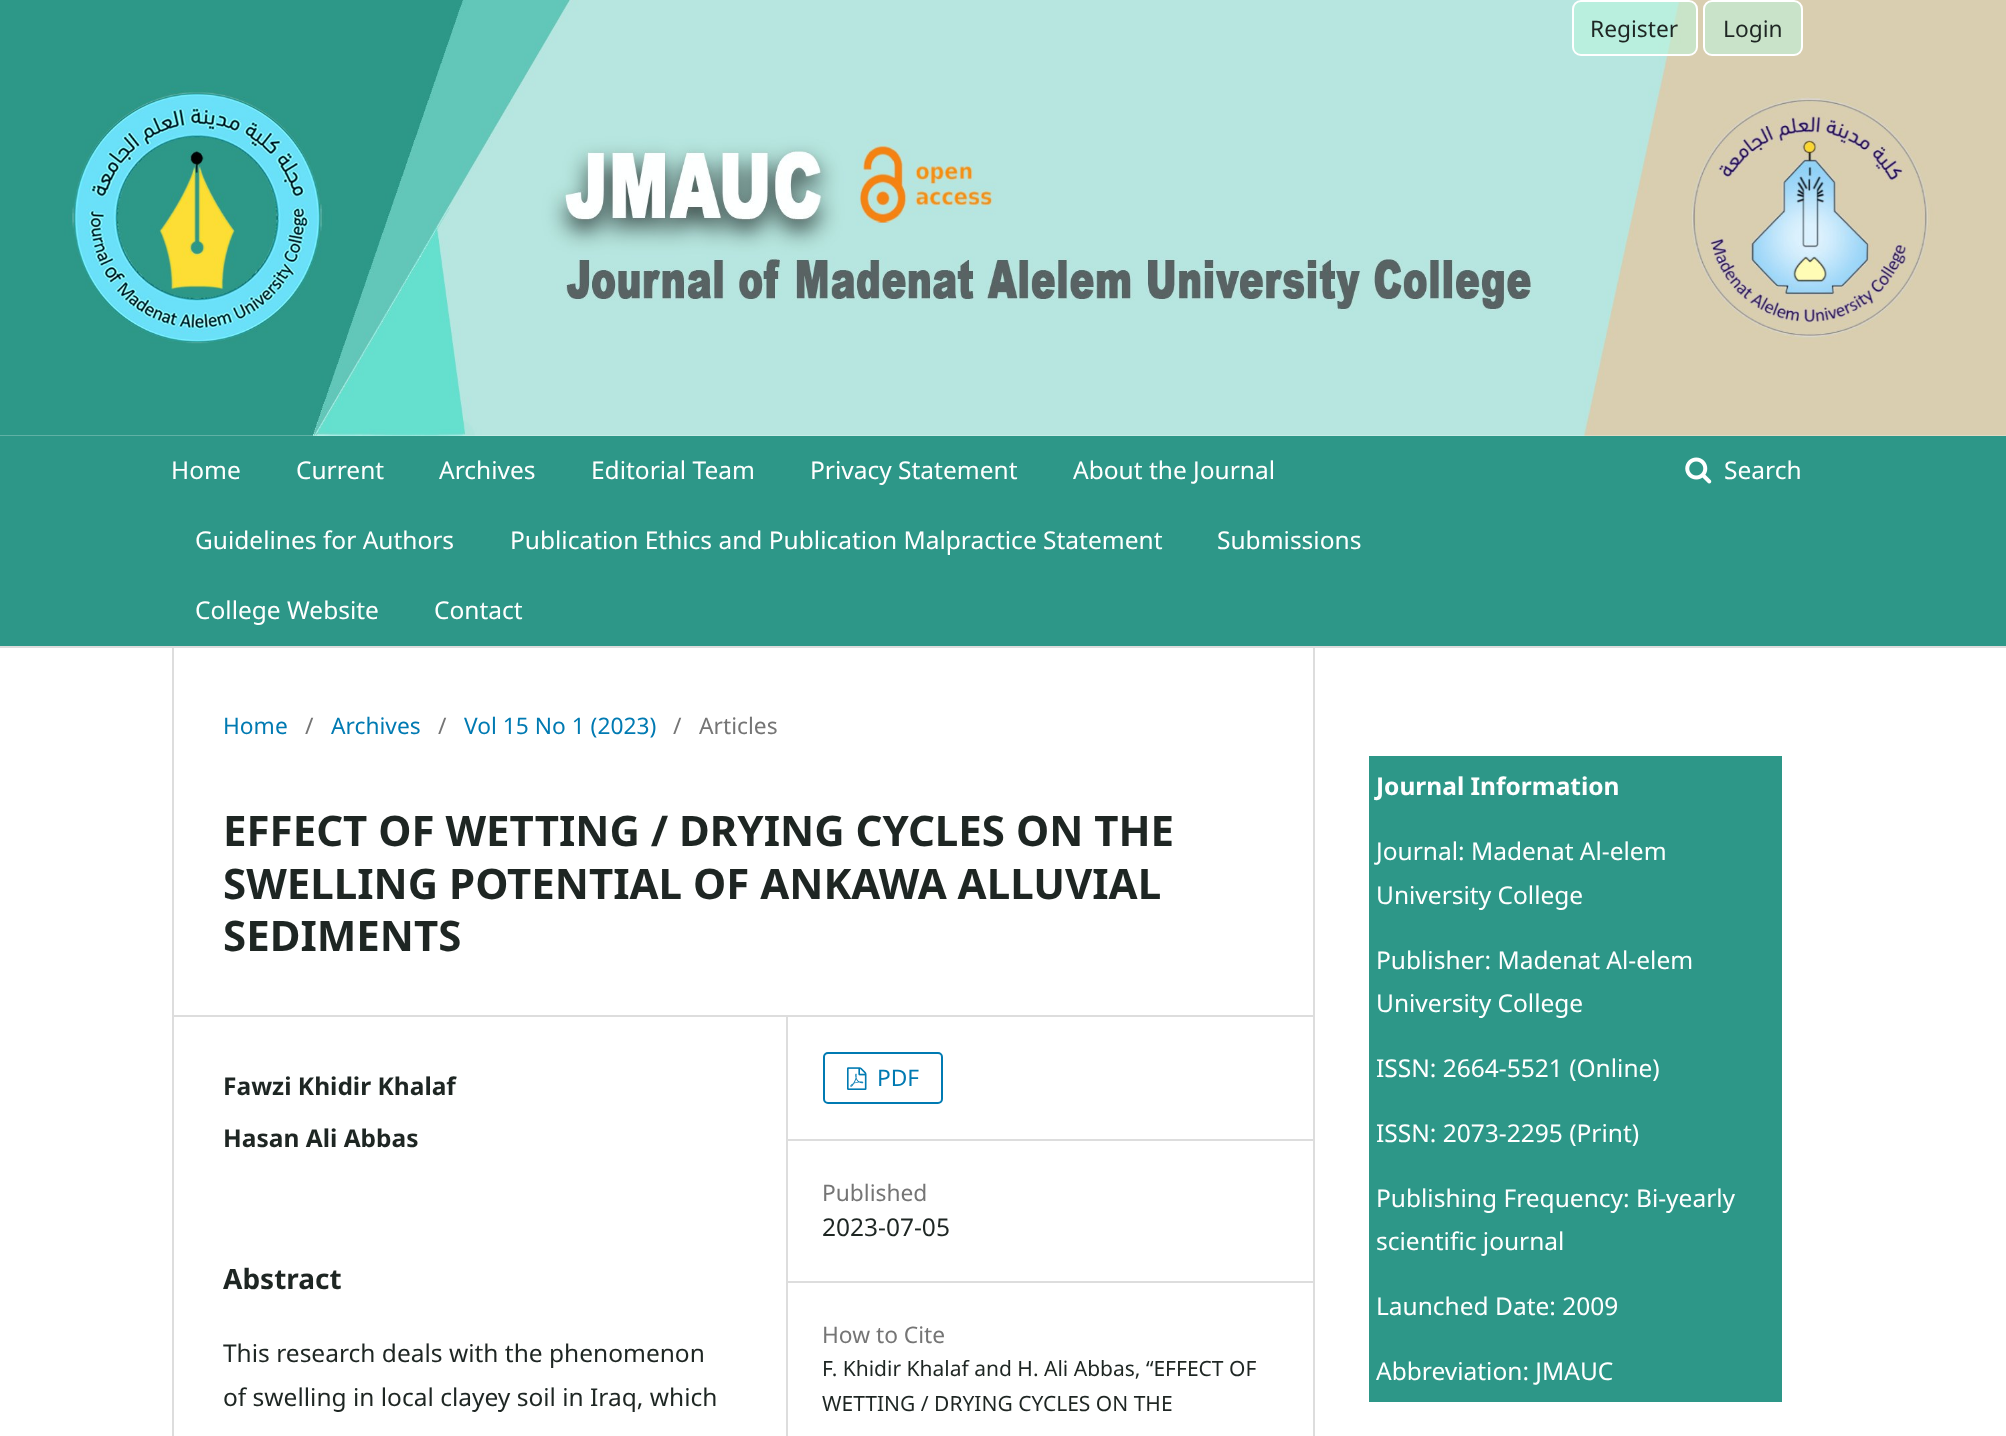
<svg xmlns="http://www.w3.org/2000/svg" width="2006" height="1436">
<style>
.a{font:22.75px Noto Sans;fill:#1e2623}
.b{font:24.5px Noto Sans;fill:#fff}
.c{font:22.75px Noto Sans;fill:#007ab2}
.d{font:22.75px Noto Sans;fill:#757575}
.e{font:bold 42px Noto Sans;fill:#1e2623}
.f{font:bold 24.5px Noto Sans;fill:#1e2623}
.g{font:bold 28px Noto Sans;fill:#1e2623}
.h{font:24.5px Noto Sans;fill:#1e2623}
.i{font:21px Noto Sans;fill:#1e2623}
.j{font:bold 24.5px Noto Sans;fill:#fff}
</style>
<rect width="100%" height="100%" fill="#fff"/>
<image href="1.png" x="0" y="0" width="2006" height="436"/>
<path fill="#2d9788" d="M0 436h2006v210H0z"/>
<path fill="#ddd" d="M0 646h2006v2H0z"/>
<rect fill="#bbf5dd8c" stroke="#fff" stroke-width="2" x="1573" y="1" width="124" height="54" rx="8"/>
<rect fill="#c9e3c9" stroke="#fff" stroke-width="2" x="1704" y="1" width="98" height="54" rx="8"/>
<image href="2.png" x="1685" y="457" width="27" height="27"/>
<path fill="#ddd" d="M172 1015h1141v2H172z"/>
<path fill="#ddd" d="M172 648h2v788H172z"/>
<path fill="#ddd" d="M786 1017h2v419H786z"/>
<path fill="#ddd" d="M788 1139h525v2H788z"/>
<rect fill="none" stroke="#007ab2" stroke-width="2" x="824" y="1053" width="118" height="50" rx="4"/>
<image href="3.png" x="847" y="1067" width="20" height="23"/>
<path fill="#ddd" d="M788 1281h525v2H788z"/>
<path fill="#ddd" d="M1313 648h2v788H1313z"/>
<path fill="#2d9788" d="M1369 756h413v646H1369z"/>
<text class="a" x="1590" y="37">Register</text>
<text class="a" x="1723" y="37">Login</text>
<text class="b" x="171" y="479">Home</text>
<text class="b" x="296" y="479">Current</text>
<text class="b" x="439" y="479">Archives</text>
<text class="b" x="591" y="479">Editorial Team</text>
<text class="b" x="810" y="479">Privacy Statement</text>
<text class="b" x="1073" y="479">About the Journal</text>
<text class="b" x="195" y="549">Guidelines for Authors</text>
<text class="b" x="510" y="549">Publication Ethics and Publication Malpractice Statement</text>
<text class="b" x="1217" y="549">Submissions</text>
<text class="b" x="195" y="619">College Website</text>
<text class="b" x="434" y="619">Contact</text>
<text class="b" x="1724" y="479">Search</text>
<text class="c" x="223" y="734">Home</text>
<text class="d" x="305" y="734">/</text>
<text class="c" x="331" y="734">Archives</text>
<text class="d" x="438" y="734">/</text>
<text class="c" x="464" y="734">Vol 15 No 1 (2023)</text>
<text class="d" x="673" y="734">/</text>
<text class="d" x="699" y="734">Articles</text>
<text class="e" x="223" y="846">EFFECT OF WETTING / DRYING CYCLES ON THE</text>
<text class="e" x="223" y="899">SWELLING POTENTIAL OF ANKAWA ALLUVIAL</text>
<text class="e" x="223" y="951">SEDIMENTS</text>
<text class="f" x="223" y="1095">Fawzi Khidir Khalaf</text>
<text class="f" x="223" y="1147">Hasan Ali Abbas</text>
<text class="g" x="223" y="1289">Abstract</text>
<text class="h" x="223" y="1362">This research deals with the phenomenon</text>
<text class="h" x="223" y="1406">of swelling in local clayey soil in Iraq, which</text>
<text class="c" x="877" y="1086">PDF</text>
<text class="d" x="822" y="1201">Published</text>
<text class="h" x="822" y="1236">2023-07-05</text>
<text class="d" x="822" y="1343">How to Cite</text>
<text class="i" x="822" y="1376">F. Khidir Khalaf and H. Ali Abbas, “EFFECT OF</text>
<text class="i" x="822" y="1411">WETTING / DRYING CYCLES ON THE</text>
<text class="j" x="1376" y="795">Journal Information</text>
<text class="b" x="1376" y="860">Journal: Madenat Al-elem</text>
<text class="b" x="1376" y="904">University College</text>
<text class="b" x="1376" y="969">Publisher: Madenat Al-elem</text>
<text class="b" x="1376" y="1012">University College</text>
<text class="b" x="1376" y="1077">ISSN: 2664-5521 (Online)</text>
<text class="b" x="1376" y="1142">ISSN: 2073-2295 (Print)</text>
<text class="b" x="1376" y="1207">Publishing Frequency: Bi-yearly</text>
<text class="b" x="1376" y="1250">scientific journal</text>
<text class="b" x="1376" y="1315">Launched Date: 2009</text>
<text class="b" x="1376" y="1380">Abbreviation: JMAUC</text>
</svg>
